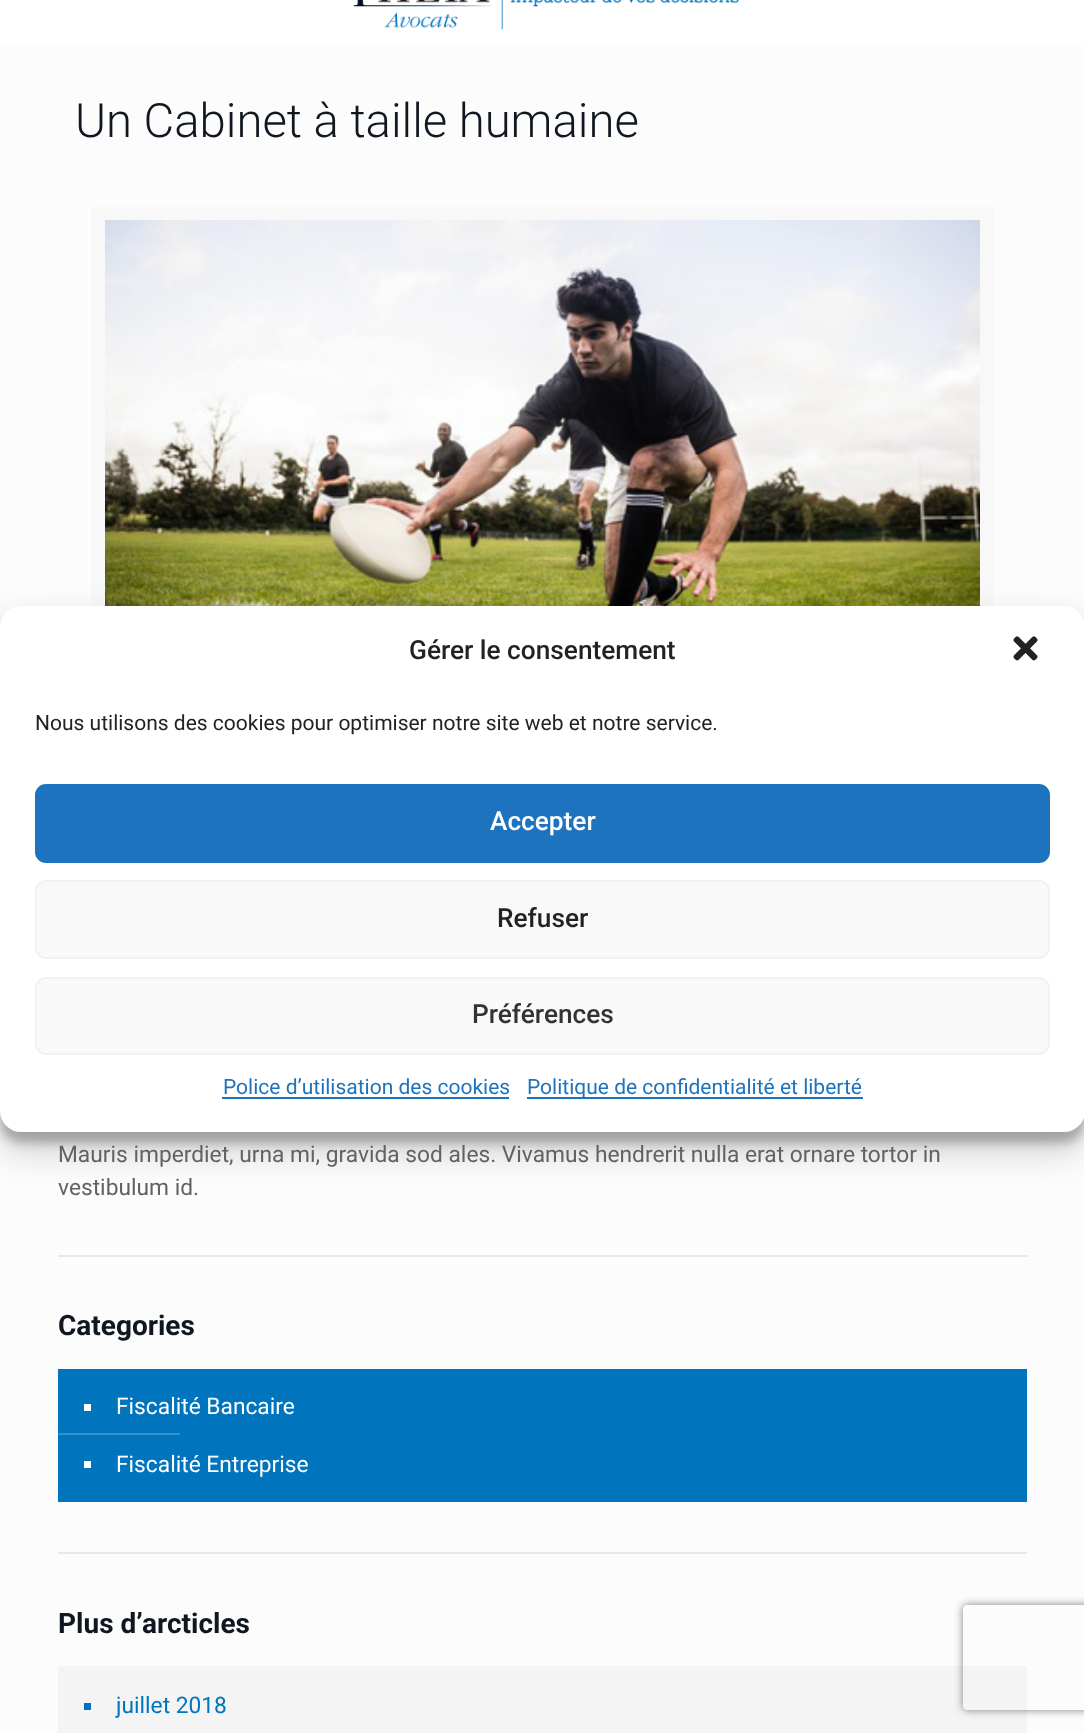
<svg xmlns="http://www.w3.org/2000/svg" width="1084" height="1733">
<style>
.a{font:300 47.25px Roboto;fill:#101720}
.b{font:22.75px Roboto;fill:#626262}
.c{font:bold 28px Roboto;fill:#101720}
.d{font:22.75px Roboto;fill:#fff}
.e{font:22.75px Roboto;fill:#0075be}
.f{font:500 26.25px Roboto;fill:#222}
.g{font:21px Roboto;fill:#222}
.h{font:500 26.25px Roboto;fill:#fff}
.i{font:500 26.25px Roboto;fill:#333}
.j{font:21px Roboto;fill:#1e73be}
</style>
<defs>
<clipPath id="clip1"><path d="M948 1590h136v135h-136zm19 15h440c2 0 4 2 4 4v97c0 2-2 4-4 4h-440c-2 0-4-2-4-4v-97c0-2 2-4 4-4z" clip-rule="evenodd"/></clipPath>
</defs>
<rect width="100%" height="100%" fill="#fcfcfc"/>
<path fill="#fff" d="M0 0h1084v46H0z"/>
<image href="1.png" x="353" y="0" width="386" height="30"/>
<path fill="none" stroke="#f8f8f8" stroke-width="14" d="M98 214h889v488H98z"/>
<image href="2.png" x="105" y="220" width="875" height="386"/>
<path fill="#e8e8e8" d="M58 1255h969v2H58z"/>
<path fill="#0075be" d="M58 1369h969v133H58z"/>
<path fill="#fff" d="M84 1404h7v7H84z"/>
<path fill="#3391cb" d="M58 1433h122v2H58z"/>
<path fill="#fff" d="M84 1461h7v7H84z"/>
<path fill="#e8e8e8" d="M58 1552h969v2H58z"/>
<path fill="#f4f4f4" d="M58 1666h969v67H58z"/>
<path fill="#0075be" d="M84 1703h7v7H84z"/>
<rect fill="#0000003b" filter="blur(5px)" y="616" width="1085" height="527" rx="21"/>
<rect fill="#00000030" filter="blur(17.5px)" y="623" width="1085" height="527" rx="21"/>
<rect fill="#fff" y="606" width="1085" height="526" rx="21"/>
<image href="3.png" x="1013" y="636" width="25" height="25"/>
<rect fill="#1e73be" stroke="#1e73be" stroke-width="2" x="36" y="785" width="1013" height="77" rx="10"/>
<rect fill="#f9f9f9" stroke="#f2f2f2" stroke-width="2" x="36" y="881" width="1013" height="77" rx="10"/>
<rect fill="#f9f9f9" stroke="#f2f2f2" stroke-width="2" x="36" y="978" width="1013" height="76" rx="10"/>
<path fill="#1e73be" d="M222 1097h287v2H222z"/>
<path fill="#1e73be" d="M527 1097h336v2H527z"/>
<g clip-path="url(#clip1)">
<rect fill="#808080" filter="blur(4.5px)" x="963" y="1605" width="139" height="105" rx="4"/>
</g>
<text class="a" x="75" y="137">Un Cabinet à taille humaine</text>
<text class="b" x="58" y="1162">Mauris imperdiet, urna mi, gravida sod ales. Vivamus hendrerit nulla erat ornare tortor in</text>
<text class="b" x="58" y="1195">vestibulum id.</text>
<text class="c" x="58" y="1335">Categories</text>
<text class="d" x="116" y="1414">Fiscalité Bancaire</text>
<text class="d" x="116" y="1472">Fiscalité Entreprise</text>
<text class="c" x="58" y="1633">Plus d’arcticles</text>
<text class="e" x="116" y="1713">juillet 2018</text>
<text class="f" x="409" y="659">Gérer le consentement</text>
<text class="g" x="35" y="730">Nous utilisons des cookies pour optimiser notre site web et notre service.</text>
<text class="h" x="490" y="830">Accepter</text>
<text class="f" x="497" y="927">Refuser</text>
<text class="i" x="472" y="1023">Préférences</text>
<text class="j" x="223" y="1094">Police d’utilisation des cookies</text>
<text class="j" x="527" y="1094">Politique de confidentialité et liberté</text>
</svg>
